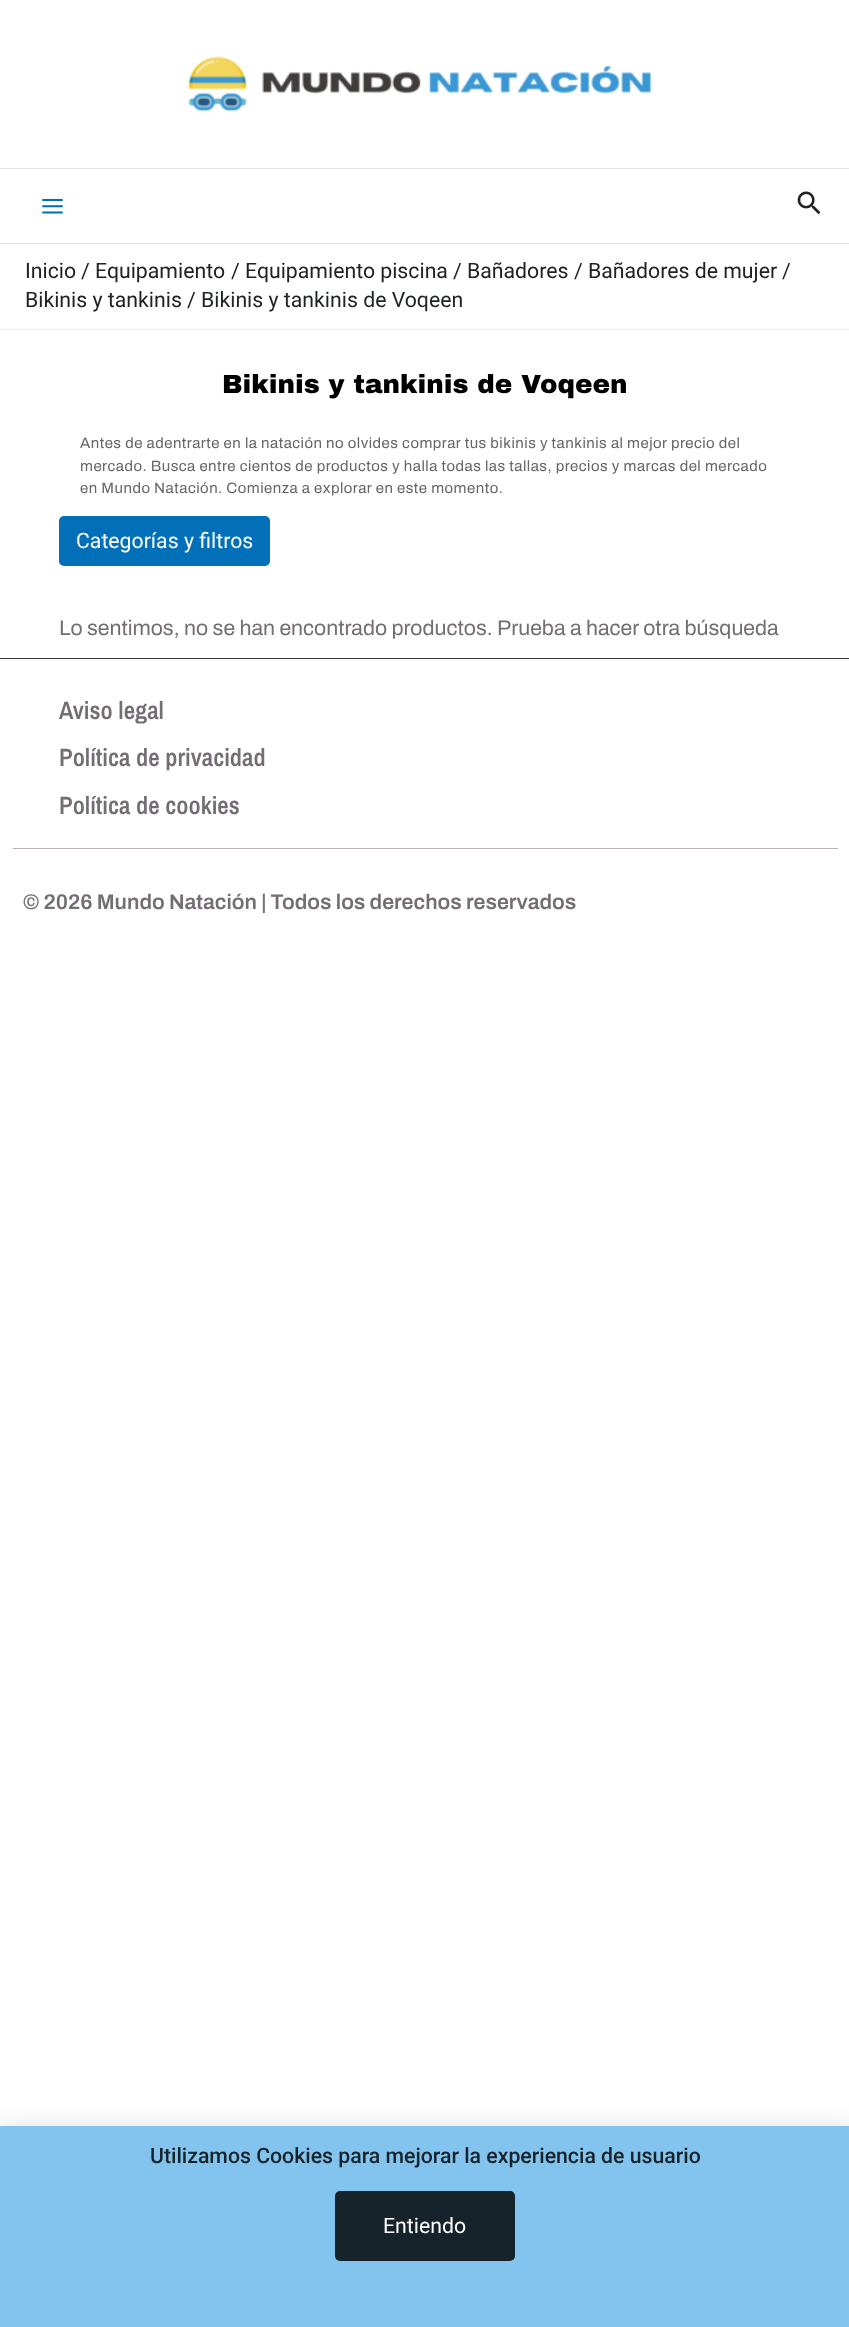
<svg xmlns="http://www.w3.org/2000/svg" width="849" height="2327">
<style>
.a{font:21.25px Roboto;fill:#222}
.b{font:21.25px Roboto;fill:#212529}
.c{font:900 26.25px Archivo Black;fill:#000}
.d{font:15px Archivo;letter-spacing:0.5px;fill:#666}
.e{font:21.25px Roboto;fill:#fff}
.f{font:21.25px Archivo;fill:#726e72}
.g{font:600 25px Archivo Narrow;fill:#726e72}
.h{font:600 21.25px Archivo;fill:#726e72}
.i{font:500 21.25px Roboto;fill:#17232b}
</style>
<rect width="100%" height="100%" fill="#fff"/>
<path fill="#e5e4e4" d="M0 168h849v1H0z"/>
<image href="1.png" x="188" y="56" width="464" height="56"/>
<path fill="#e5e4e4" d="M0 243h849v1H0z"/>
<image href="2.png" x="42" y="198" width="21" height="16"/>
<image href="3.png" x="797" y="191" width="24" height="24"/>
<path fill="#eaeaea" d="M0 329h849v1H0z"/>
<rect fill="#0170b9" x="59" y="516" width="211" height="50" rx="5"/>
<path fill="#403c3c" d="M0 658h849v1H0z"/>
<path fill="#bab1b1" d="M13 848h825v1H13z"/>
<path fill="#00000033" filter="blur(14.5px)" d="M-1 2133h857v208H-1z"/>
<path fill="#82c4ee" d="M0 2126h849v201H0z"/>
<rect fill="#17232b" x="335" y="2191" width="180" height="70" rx="5"/>
<text class="a" x="25" y="278">Inicio</text>
<text class="b" x="81" y="278">/</text>
<text class="a" x="95" y="278">Equipamiento</text>
<text class="b" x="231" y="278">/</text>
<text class="a" x="245" y="278">Equipamiento piscina</text>
<text class="b" x="453" y="278">/</text>
<text class="a" x="467" y="278">Bañadores</text>
<text class="b" x="574" y="278">/</text>
<text class="a" x="588" y="278">Bañadores de mujer</text>
<text class="b" x="782" y="278">/</text>
<text class="a" x="25" y="307">Bikinis y tankinis</text>
<text class="b" x="187" y="307">/ Bikinis y tankinis de Voqeen</text>
<text class="c" x="222" y="393">Bikinis y tankinis de Voqeen</text>
<text class="d" x="80" y="448">Antes de adentrarte en la natación no olvides comprar tus bikinis y tankinis al mejor precio del</text>
<text class="d" x="80" y="471">mercado. Busca entre cientos de productos y halla todas las tallas, precios y marcas del mercado</text>
<text class="d" x="80" y="493">en Mundo Natación. Comienza a explorar en este momento.</text>
<text class="e" x="76" y="548">Categorías y filtros</text>
<text class="f" x="59" y="635">Lo sentimos, no se han encontrado productos. Prueba a hacer otra búsqueda</text>
<text class="g" x="59" y="719">Aviso legal</text>
<text class="g" x="59" y="766">Política de privacidad</text>
<text class="g" x="59" y="814">Política de cookies</text>
<text class="h" x="23" y="909">© 2026 Mundo Natación | Todos los derechos reservados</text>
<text class="i" x="150" y="2163">Utilizamos Cookies para mejorar la experiencia de usuario</text>
<text class="e" x="383" y="2233">Entiendo</text>
</svg>
